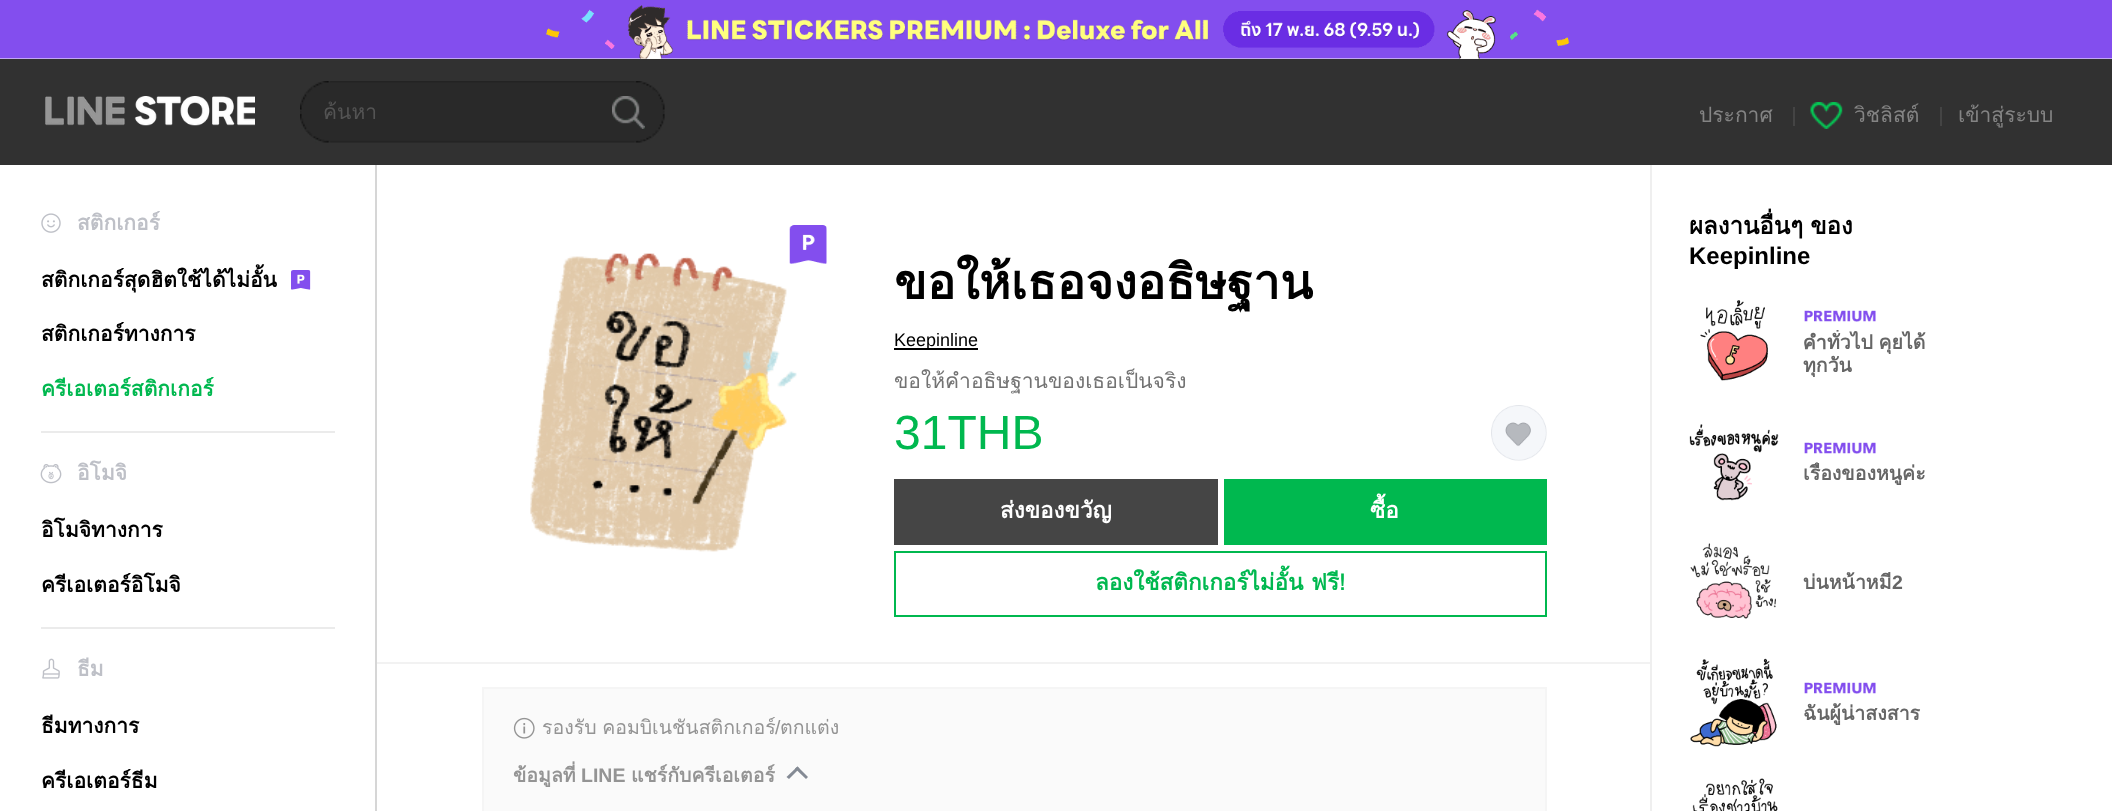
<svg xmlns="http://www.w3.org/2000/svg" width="2112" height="811">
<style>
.a{font:21px Loma;fill:#545454}
.b{font:21px Loma;fill:#848484}
.c{font:bold 21px Loma;fill:#bec0c7}
.d{font:bold 21px Loma;fill:#000}
.e{font:bold 21px Loma;fill:#00b84f}
.f{font:bold 48px Loma;fill:#000}
.g{font:18px Liberation Sans;fill:#000}
.h{font:21px Loma;fill:#737373}
.i{font:48px Liberation Sans;fill:#00b84f}
.j{font:bold 22.5px Loma;fill:#fff}
.k{font:bold 22.5px Loma;fill:#00b84f}
.l{font:19.5px Loma;fill:#949494}
.m{font:19.5px Liberation Sans;fill:#949494}
.n{font:bold 19.5px Loma;fill:#949494}
.o{font:bold 19.5px Liberation Sans;fill:#949494}
.p{font:bold 24px Loma;fill:#000}
.q{font:bold 24px Liberation Sans;fill:#000}
.r{font:bold 19.5px Loma;fill:#666}
.s{font:bold 19.5px Liberation Sans;fill:#666}
</style>
<defs>
<clipPath id="clip1"><path d="M323 96h273v33H323z"/></clipPath>
<clipPath id="clip2"><path d="M1803 330h138v47H1803z"/></clipPath>
<clipPath id="clip3"><path d="M1803 462h138v23H1803z"/></clipPath>
<clipPath id="clip4"><path d="M1803 572h138v22H1803z"/></clipPath>
<clipPath id="clip5"><path d="M1803 702h138v23H1803z"/></clipPath>
</defs>
<rect width="100%" height="100%" fill="#fff"/>
<image href="1.png" x="0" y="0" width="2112" height="59"/>
<path fill="#313131" d="M0 59h2112v106H0z"/>
<image href="2.png" x="45" y="96" width="210" height="30"/>
<image href="3.png" x="300" y="81" width="365" height="62"/>
<image href="4.png" x="612" y="96" width="33" height="33"/>
<path fill="#444" d="M1793 107h2v19H1793z"/>
<image href="5.png" x="1810" y="102" width="33" height="27"/>
<path fill="#444" d="M1940 107h2v19H1940z"/>
<image href="6.png" x="41" y="213" width="20" height="20"/>
<image href="7.png" x="291" y="270" width="20" height="20"/>
<path fill="#ebebeb" d="M41 431h294v2H41z"/>
<image href="8.png" x="40" y="464" width="22" height="20"/>
<path fill="#ebebeb" d="M41 627h294v2H41z"/>
<image href="9.png" x="42" y="658" width="18" height="21"/>
<path fill="#d6d6d6" d="M375 165h2v646H375z"/>
<image href="11.png" x="530" y="253" width="267" height="299"/>
<image href="10.png" x="789" y="225" width="38" height="39"/>
<path fill="#000" d="M894 348h84v2H894z"/>
<image href="12.png" x="1491" y="405" width="56" height="56"/>
<path fill="#454545" d="M894 479h324v66H894z"/>
<path fill="#00b84f" d="M1224 479h323v66H1224z"/>
<path fill="none" stroke="#00b84f" stroke-width="2" d="M895 552h651v64H895z"/>
<path fill="#f2f2f2" d="M377 662h1275v2H377z"/>
<path fill="#efefef" d="M1650 165h2v646H1650z"/>
<path fill="#fafafa" stroke="#f5f5f5" stroke-width="2" d="M483 688h1063v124H483z"/>
<image href="13.png" x="513" y="717" width="22" height="22"/>
<path fill="#848a94" d="M786.5 777l11-10.5l2 2l-10.5 10.5z"/>
<path fill="#848a94" d="M795 768.5l2.5-2l10.5 10.5l-2 2z"/>
<image href="14.png" x="1700" y="300" width="68" height="81"/>
<image href="15.png" x="1804" y="310" width="72" height="12"/>
<image href="16.png" x="1689" y="424" width="90" height="77"/>
<image href="15.png" x="1804" y="442" width="72" height="12"/>
<image href="17.png" x="1690" y="543" width="86" height="76"/>
<image href="18.png" x="1690" y="658" width="87" height="89"/>
<image href="15.png" x="1804" y="682" width="72" height="12"/>
<image href="19.png" x="1692" y="778" width="86" height="33"/>
<g clip-path="url(#clip1)">
<text class="a" x="323" y="119">ค้นหา</text>
</g>
<text class="b" x="1699" y="122">ประกาศ</text>
<text class="b" x="1854" y="122">วิชลิสต์</text>
<text class="b" x="1958" y="122">เข้าสู่ระบบ</text>
<text class="c" x="77" y="230">สติกเกอร์</text>
<text class="d" x="41" y="287">สติกเกอร์สุดฮิตใช้ได้ไม่อั้น</text>
<text class="d" x="41" y="341">สติกเกอร์ทางการ</text>
<text class="e" x="41" y="396">ครีเอเตอร์สติกเกอร์</text>
<text class="c" x="77" y="480">อิโมจิ</text>
<text class="d" x="41" y="537">อิโมจิทางการ</text>
<text class="d" x="41" y="592">ครีเอเตอร์อิโมจิ</text>
<text class="c" x="77" y="676">ธีม</text>
<text class="d" x="41" y="733">ธีมทางการ</text>
<text class="d" x="41" y="788">ครีเอเตอร์ธีม</text>
<text class="f" x="894" y="299">ขอให้เธอจงอธิษฐาน</text>
<text class="g" x="894" y="346">Keepinline</text>
<text class="h" x="894" y="388">ขอให้คำอธิษฐานของเธอเป็นจริง</text>
<text class="i" x="894" y="449">31THB</text>
<text class="j" x="1000" y="518">ส่งของขวัญ</text>
<text class="j" x="1370" y="518">ซื้อ</text>
<text class="k" x="1095" y="590">ลองใช้สติกเกอร์ไม่อั้น ฟรี!</text>
<text class="l" x="542" y="734" word-spacing="-1">รองรับ คอมบิเนชันสติกเกอร์</text>
<text class="m" x="775" y="734">/</text>
<text class="l" x="780" y="734">ตกแต่ง</text>
<text class="n" x="513" y="782">ข้อมูลที่</text>
<text class="o" x="581" y="782">LINE</text>
<text class="n" x="631" y="782">แชร์กับครีเอเตอร์</text>
<text class="p" x="1689" y="234" word-spacing="-1">ผลงานอื่นๆ ของ</text>
<text class="q" x="1689" y="264">Keepinline</text>
<g clip-path="url(#clip2)">
<text class="r" x="1803" y="349" word-spacing="-1">คำทั่วไป คุยได้</text>
<text class="r" x="1803" y="372">ทุกวัน</text>
</g>
<g clip-path="url(#clip3)">
<text class="r" x="1803" y="480">เรื่องของหนูค่ะ</text>
</g>
<g clip-path="url(#clip4)">
<text class="r" x="1803" y="589">บ่นหน้าหมี</text>
</g>
<text class="s" x="1892" y="589">2</text>
<g clip-path="url(#clip5)">
<text class="r" x="1803" y="720">ฉันผู้น่าสงสาร</text>
</g>
</svg>
